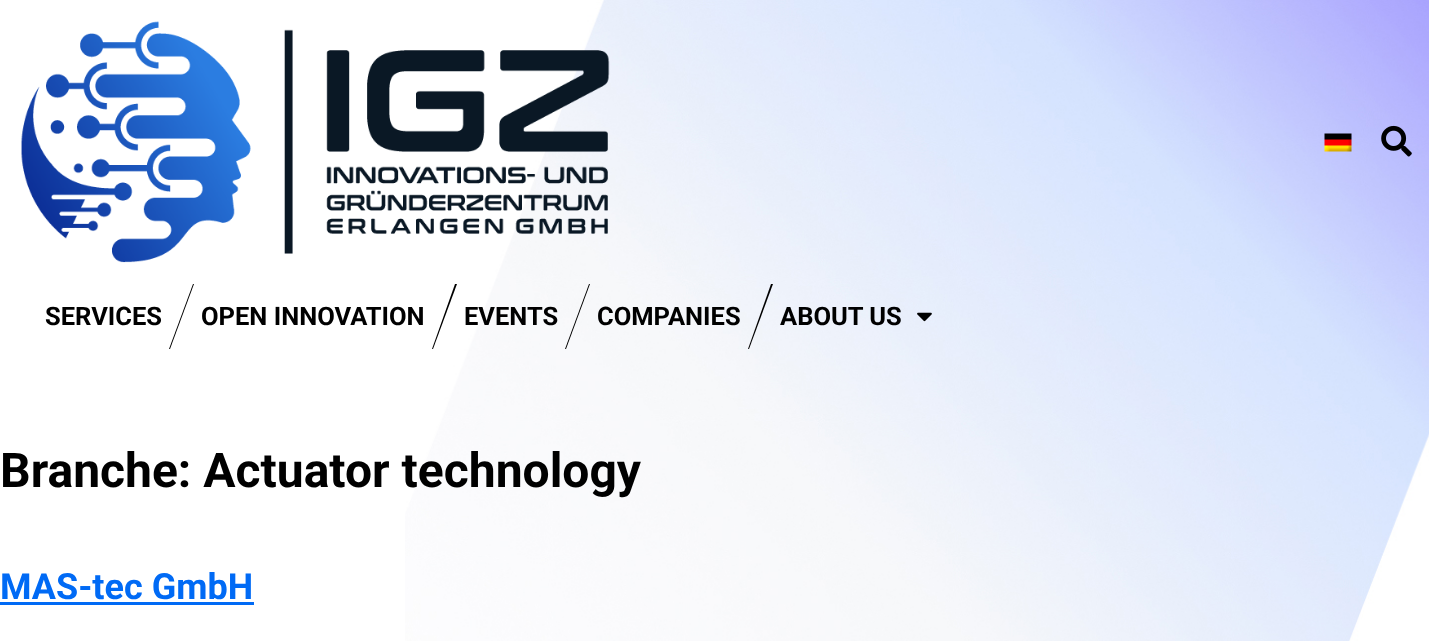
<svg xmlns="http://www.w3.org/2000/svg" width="1429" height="641">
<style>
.a{font:bold 25.5px Roboto;fill:#000}
.b{font:bold 48px Roboto;fill:#000}
.c{font:bold 36px Roboto;fill:#006af5}
</style>
<rect width="100%" height="100%" fill="#fff"/>
<image href="1.png" x="405" y="0" width="1024" height="641"/>
<image href="2.png" x="21" y="21" width="589" height="242"/>
<image href="3.png" x="1324" y="133" width="28" height="19"/>
<image href="4.png" x="1381" y="125" width="31" height="32"/>
<path fill="#000" d="M193 284h1l-24 65h-1z"/>
<path fill="#000" d="M455 284h2l-24 65h-1z"/>
<path fill="#000" d="M589 284h1l-24 65h-1z"/>
<path fill="#000" d="M771 284h2l-24 65h-1z"/>
<image href="5.png" x="917" y="312" width="15" height="10"/>
<path fill="#006af5" d="M0 602h254v3H0z"/>
<text class="a" x="45" y="325">SERVICES</text>
<text class="a" x="201" y="325">OPEN INNOVATION</text>
<text class="a" x="464" y="325">EVENTS</text>
<text class="a" x="597" y="325">COMPANIES</text>
<text class="a" x="780" y="325">ABOUT US</text>
<text class="b" x="0" y="487">Branche: Actuator technology</text>
<text class="c" x="0" y="599">MAS-tec GmbH</text>
</svg>
